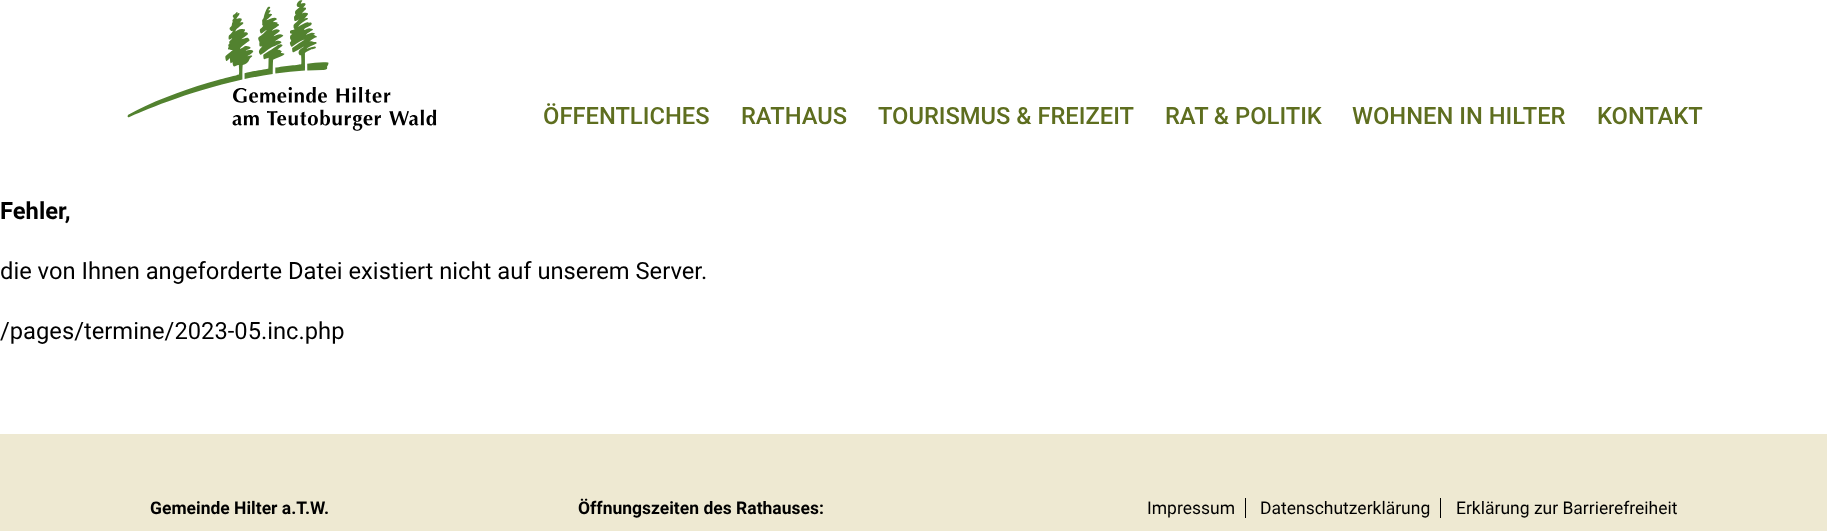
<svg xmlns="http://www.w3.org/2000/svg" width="1827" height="531">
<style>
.a{font:500 23.75px Roboto;fill:#5e6e1f}
.b{font:bold 23.75px Roboto;fill:#000}
.c{font:23.75px Roboto;fill:#000}
.d{font:bold 17.5px Roboto;fill:#000}
.e{font:17.5px Roboto;fill:#000}
</style>
<rect width="100%" height="100%" fill="#eee9d2"/>
<path fill="#fff" d="M0 0h1827v434H0z"/>
<image href="1.png" x="127" y="0" width="310" height="131"/>
<path fill="#000" d="M1245 498h1v20H1245z"/>
<path fill="#000" d="M1440 498h1v20H1440z"/>
<text class="a" x="543" y="124">ÖFFENTLICHES</text>
<text class="a" x="741" y="124">RATHAUS</text>
<text class="a" x="878" y="124">TOURISMUS &amp; FREIZEIT</text>
<text class="a" x="1165" y="124">RAT &amp; POLITIK</text>
<text class="a" x="1352" y="124">WOHNEN IN HILTER</text>
<text class="a" x="1597" y="124">KONTAKT</text>
<text class="b" x="0" y="219">Fehler,</text>
<text class="c" x="0" y="279">die von Ihnen angeforderte Datei existiert nicht auf unserem Server.</text>
<text class="c" x="0" y="339">/pages/termine/2023-05.inc.php</text>
<text class="d" x="150" y="514">Gemeinde Hilter a.T.W.</text>
<text class="d" x="578" y="514">Öffnungszeiten des Rathauses:</text>
<text class="e" x="1147" y="514">Impressum</text>
<text class="e" x="1260" y="514">Datenschutzerklärung</text>
<text class="e" x="1456" y="514">Erklärung zur Barrierefreiheit</text>
</svg>
